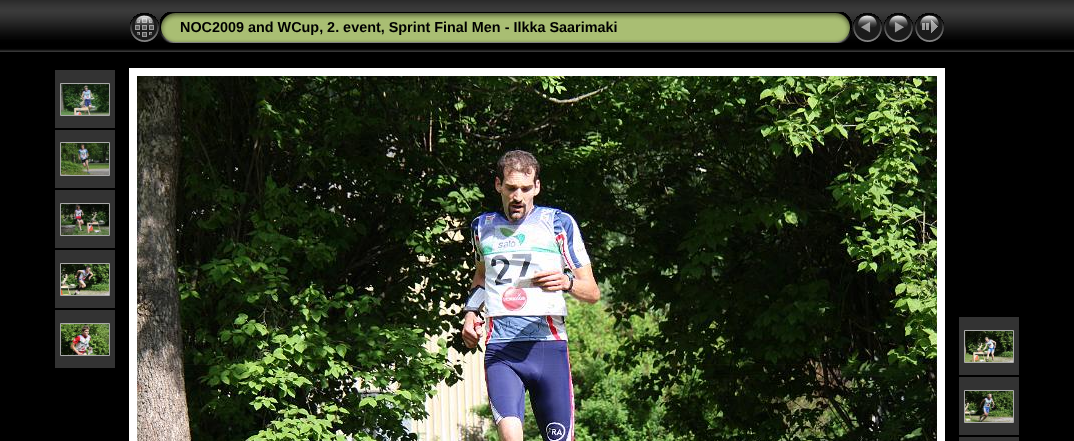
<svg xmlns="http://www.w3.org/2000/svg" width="1074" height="441">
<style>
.a{font:bold 14.4px Liberation Sans;fill:#000}
</style>
<rect width="100%" height="100%" fill="#000"/>
<image href="1.png" x="0" y="0" width="1074" height="52"/>
<image href="2.png" x="130" y="13" width="29" height="29"/>
<image href="3.png" x="160" y="12" width="20" height="31"/>
<image href="4.png" x="180" y="12" width="652" height="31"/>
<image href="5.png" x="832" y="12" width="20" height="31"/>
<image href="6.png" x="853" y="13" width="29" height="29"/>
<image href="7.png" x="884" y="13" width="29" height="29"/>
<image href="8.png" x="915" y="13" width="29" height="29"/>
<path fill="#333" d="M55 70h60v58H55z"/>
<path fill="none" stroke="#aaa" d="M60.5 83.5h49v32H60.5z"/>
<image href="9.png" x="61" y="84" width="48" height="31"/>
<path fill="#333" d="M55 130h60v58H55z"/>
<path fill="none" stroke="#aaa" d="M60.5 142.5h49v33H60.5z"/>
<image href="10.png" x="61" y="143" width="48" height="32"/>
<path fill="#333" d="M55 190h60v58H55z"/>
<path fill="none" stroke="#aaa" d="M60.5 203.5h49v32H60.5z"/>
<image href="11.png" x="61" y="204" width="48" height="31"/>
<path fill="#333" d="M55 250h60v58H55z"/>
<path fill="none" stroke="#aaa" d="M60.5 263.5h49v32H60.5z"/>
<image href="12.png" x="61" y="264" width="48" height="31"/>
<path fill="#333" d="M55 310h60v58H55z"/>
<path fill="none" stroke="#aaa" d="M60.5 323.5h49v32H60.5z"/>
<image href="13.png" x="61" y="324" width="48" height="31"/>
<path fill="none" stroke="#fff" stroke-width="8" d="M133 72h808v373H133z"/>
<image href="14.png" x="137" y="76" width="800" height="365"/>
<path fill="#333" d="M959 317h60v58H959z"/>
<path fill="none" stroke="#aaa" d="M964.5 330.5h49v32H964.5z"/>
<image href="15.png" x="965" y="331" width="48" height="31"/>
<path fill="#333" d="M959 377h60v58H959z"/>
<path fill="none" stroke="#aaa" d="M964.5 390.5h49v32H964.5z"/>
<image href="16.png" x="965" y="391" width="48" height="31"/>
<path fill="#333" d="M959 437h60v4H959z"/>
<text class="a" x="180" y="32">NOC2009 and WCup, 2. event, Sprint Final Men - Ilkka Saarimaki</text>
</svg>
